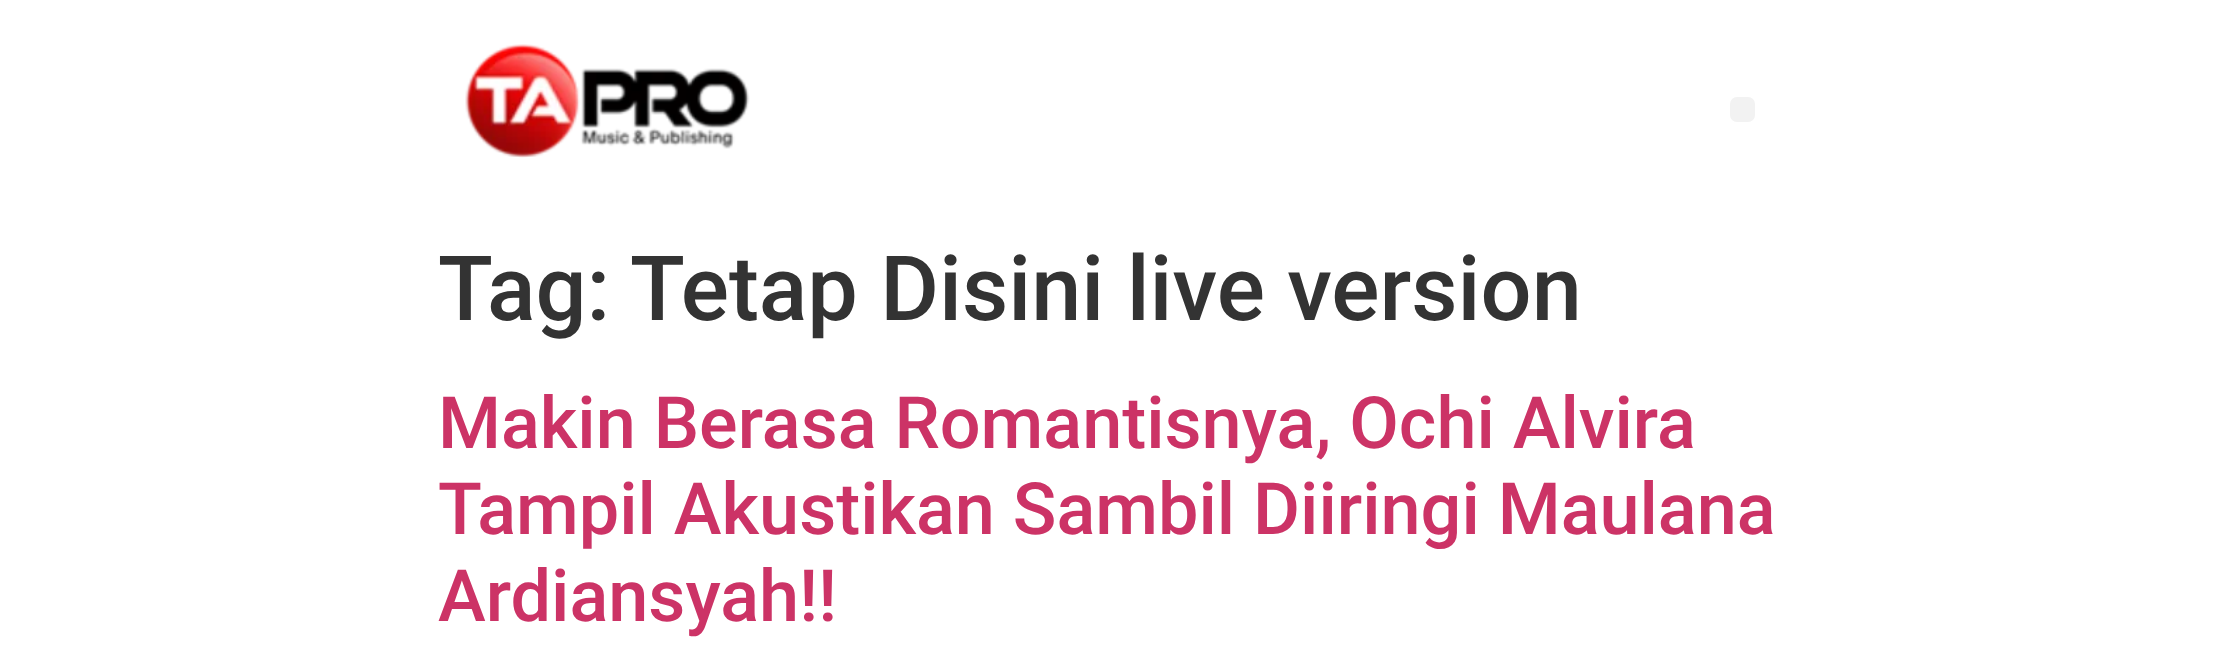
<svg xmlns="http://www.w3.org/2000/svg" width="2225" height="647">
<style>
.a{font:500 90px Roboto;fill:#333}
.b{font:500 72px Roboto;fill:#c36}
</style>
<rect width="100%" height="100%" fill="#fff"/>
<image href="1.png" x="465" y="44" width="285" height="114"/>
<rect fill="#f2f2f2" x="1730" y="97" width="25" height="25" rx="7"/>
<text class="a" x="438" y="320">Tag:</text>
<text class="a" x="630" y="320">Tetap Disini live version</text>
<text class="b" x="438" y="448">Makin Berasa Romantisnya, Ochi Alvira</text>
<text class="b" x="438" y="534">Tampil Akustikan Sambil Diiringi Maulana</text>
<text class="b" x="438" y="621">Ardiansyah!!</text>
</svg>
